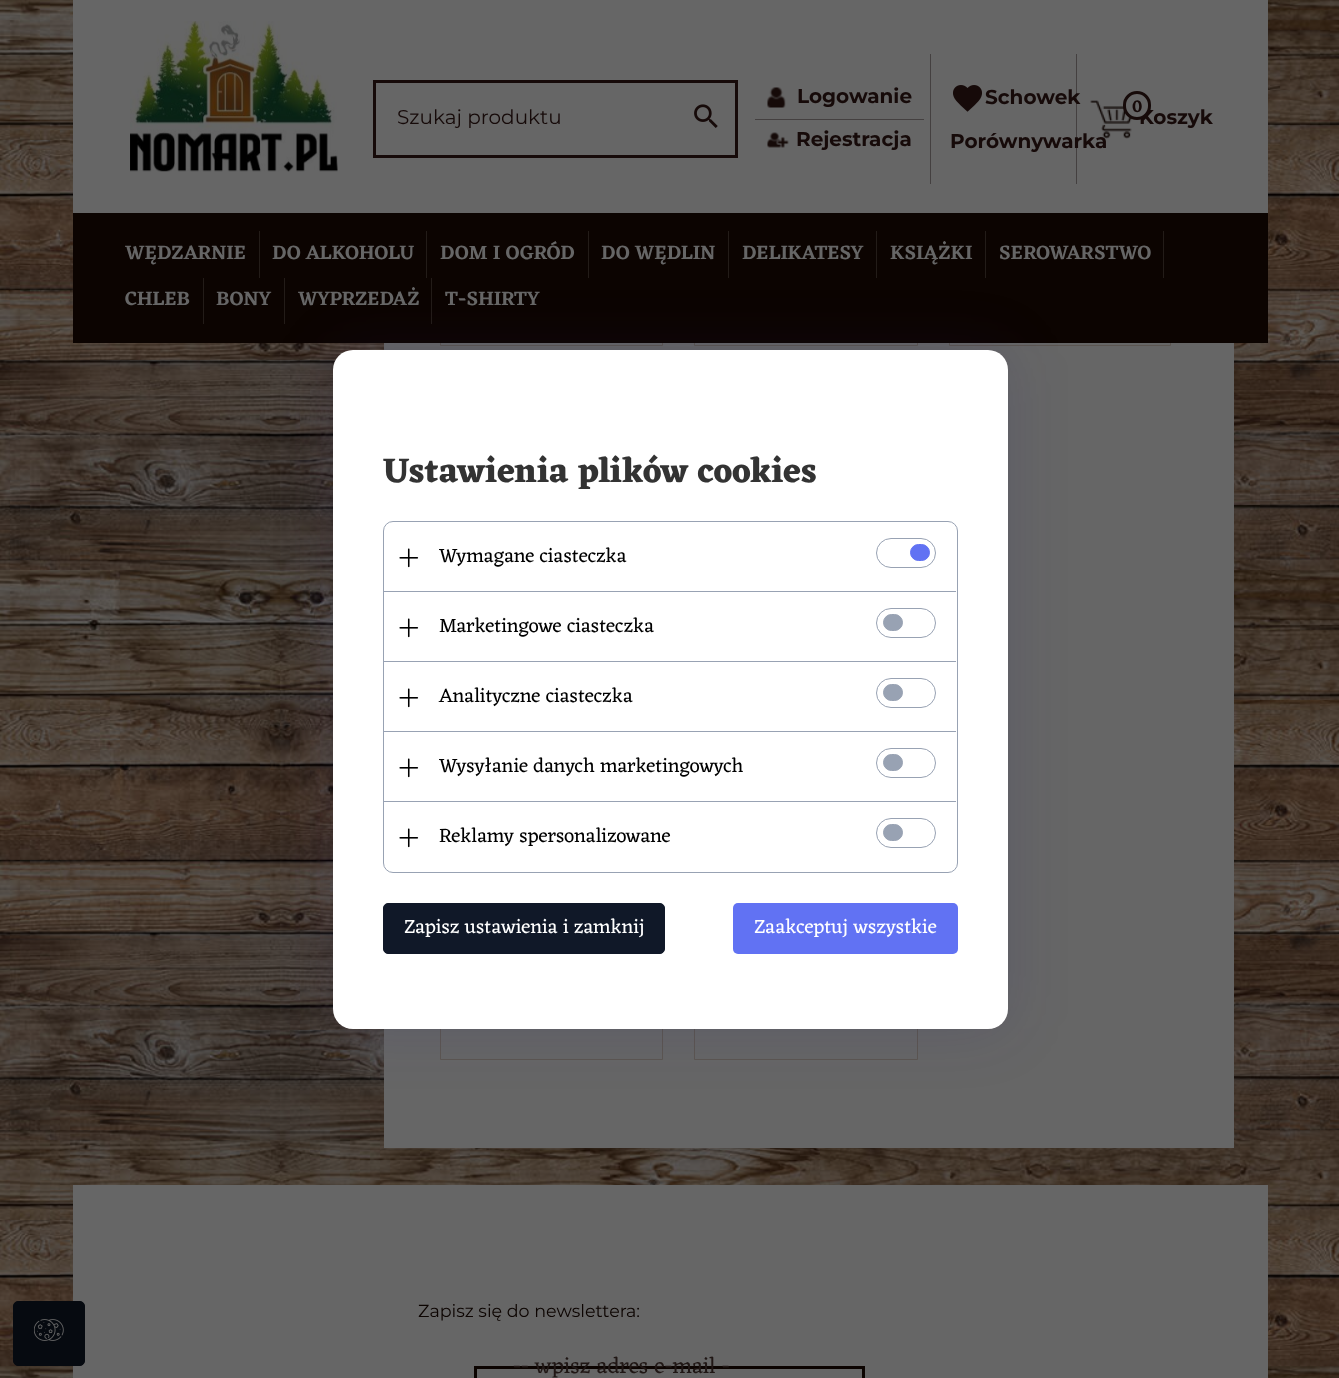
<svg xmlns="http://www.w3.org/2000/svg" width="1339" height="1378">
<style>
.a{font:20px Montserrat;fill:#160a09}
.b{font:bold 20px Montserrat;fill:#160a09}
.c{font:600 17.5px Eczar;fill:#160a09}
.d{font:600 20px Eczar;fill:#666}
.e{font:17.5px Montserrat;fill:#0c0401}
.f{font:22.5px Eczar;fill:#201715}
.g{font:bold 35px Eczar;fill:#333}
.h{font:20px Eczar;fill:#000}
.i{font:20px Eczar;fill:#fff}
</style>
<rect width="100%" height="100%" fill="#fff"/>
<image href="1.png" x="0" y="0" width="1339" height="1378"/>
<path fill="#666" d="M384 343h850v805H384z"/>
<path fill="none" stroke="#5c5651" d="M440.5 -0.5h222v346H440.5z"/>
<path fill="none" stroke="#5c5651" d="M694.5 -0.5h223v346H694.5z"/>
<path fill="none" stroke="#5c5651" d="M949.5 -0.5h221v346H949.5z"/>
<path fill="none" stroke="#5c5651" d="M440.5 384.5h222v675H440.5z"/>
<path fill="none" stroke="#5c5651" d="M694.5 384.5h223v675H694.5z"/>
<path fill="#666" d="M73 0h1195v213H73z"/>
<image href="2.png" x="130" y="21" width="208" height="151"/>
<path fill="none" stroke="#160a09" stroke-width="3" d="M374.5 81.5h362v75H374.5z"/>
<image href="3.png" x="694" y="104" width="24" height="24"/>
<path fill="#444040" d="M755 119h169v1H755z"/>
<image href="4.png" x="767" y="87" width="19" height="21"/>
<image href="5.png" x="767" y="132" width="22" height="16"/>
<path fill="#444040" d="M1076 54h1v130H1076z"/>
<path fill="#444040" d="M930 54h1v130H930z"/>
<image href="6.png" x="953" y="85" width="29" height="27"/>
<path fill="#0c0401" d="M73 213h1195v130H73z"/>
<path fill="#231c18" d="M259 231h1v47H259z"/>
<path fill="#231c18" d="M426 231h1v47H426z"/>
<path fill="#231c18" d="M588 231h1v47H588z"/>
<path fill="#231c18" d="M728 231h1v47H728z"/>
<path fill="#231c18" d="M876 231h1v47H876z"/>
<path fill="#231c18" d="M985 231h1v47H985z"/>
<path fill="#231c18" d="M1163 231h1v47H1163z"/>
<path fill="#231c18" d="M203 278h1v46H203z"/>
<path fill="#231c18" d="M284 278h1v46H284z"/>
<path fill="#231c18" d="M431 278h1v46H431z"/>
<path fill="#666" d="M73 1185h1195v193H73z"/>
<path fill="none" stroke="#0c0401" stroke-width="3" d="M475.5 1367.5h388v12H475.5z"/>
<rect fill="#211a6926" filter="blur(30px)" x="333" y="350" width="675" height="679" rx="20"/>
<rect fill="#fff" x="333" y="350" width="675" height="679" rx="20"/>
<rect fill="none" stroke="#98a2b3" x="383.5" y="521.5" width="574" height="351" rx="9.5"/>
<image href="8.png" x="399" y="548" width="20" height="20"/>
<rect fill="none" stroke="#98a2b3" x="876.5" y="538.5" width="59" height="29" rx="14.5"/>
<rect fill="#6172f3" stroke="#6172f3" x="910.5" y="544.5" width="19" height="16" rx="8"/>
<path fill="#98a2b3" d="M384 591h572v1H384z"/>
<image href="8.png" x="399" y="618" width="20" height="20"/>
<rect fill="none" stroke="#98a2b3" x="876.5" y="608.5" width="59" height="29" rx="14.5"/>
<rect fill="#98a2b3" stroke="#98a2b3" x="883.5" y="614.5" width="19" height="16" rx="8"/>
<path fill="#98a2b3" d="M384 661h572v1H384z"/>
<image href="8.png" x="399" y="688" width="20" height="20"/>
<rect fill="none" stroke="#98a2b3" x="876.5" y="678.5" width="59" height="29" rx="14.5"/>
<rect fill="#98a2b3" stroke="#98a2b3" x="883.5" y="684.5" width="19" height="16" rx="8"/>
<path fill="#98a2b3" d="M384 731h572v1H384z"/>
<image href="8.png" x="399" y="758" width="20" height="20"/>
<rect fill="none" stroke="#98a2b3" x="876.5" y="748.5" width="59" height="29" rx="14.5"/>
<rect fill="#98a2b3" stroke="#98a2b3" x="883.5" y="754.5" width="19" height="16" rx="8"/>
<path fill="#98a2b3" d="M384 801h572v1H384z"/>
<image href="8.png" x="399" y="828" width="20" height="20"/>
<rect fill="none" stroke="#98a2b3" x="876.5" y="818.5" width="59" height="29" rx="14.5"/>
<rect fill="#98a2b3" stroke="#98a2b3" x="883.5" y="824.5" width="19" height="16" rx="8"/>
<rect fill="#101828" stroke="#101828" x="383.5" y="903.5" width="281" height="50" rx="4.5"/>
<rect fill="#6172f3" x="733" y="903" width="225" height="51" rx="5"/>
<rect fill="#060a10" stroke="#060a10" x="13.5" y="1301.5" width="71" height="64" rx="4.5"/>
<image href="9.png" x="34" y="1319" width="30" height="22"/>
<text class="a" x="397" y="124">Szukaj produktu</text>
<text class="b" x="797" y="103">Logowanie</text>
<text class="b" x="796" y="146">Rejestracja</text>
<text class="b" x="985" y="104">Schowek</text>
<text class="b" x="950" y="148">Porównywarka</text>
<image href="7.png" x="1090" y="100" width="42" height="39"/>
<text class="b" x="1139" y="124">Koszyk</text>
<rect fill="#666" stroke="#160a09" stroke-width="3" x="1124.5" y="92.5" width="25" height="26" rx="12.5"/>
<text class="c" x="1132" y="112">0</text>
<text class="d" x="125" y="259">WĘDZARNIE</text>
<text class="d" x="272" y="259">DO ALKOHOLU</text>
<text class="d" x="440" y="259">DOM I OGRÓD</text>
<text class="d" x="601" y="259">DO WĘDLIN</text>
<text class="d" x="742" y="259">DELIKATESY</text>
<text class="d" x="890" y="259">KSIĄŻKI</text>
<text class="d" x="999" y="259">SEROWARSTWO</text>
<text class="d" x="125" y="305">CHLEB</text>
<text class="d" x="216" y="305">BONY</text>
<text class="d" x="298" y="305">WYPRZEDAŻ</text>
<text class="d" x="445" y="305">T-SHIRTY</text>
<text class="e" x="418" y="1317">Zapisz się do newslettera:</text>
<text class="f" x="513" y="1373">-- wpisz adres e-mail -</text>
<text class="g" x="383" y="482">Ustawienia plików cookies</text>
<text class="h" x="439" y="562">Wymagane ciasteczka</text>
<text class="h" x="439" y="632">Marketingowe ciasteczka</text>
<text class="h" x="439" y="702">Analityczne ciasteczka</text>
<text class="h" x="439" y="772">Wysyłanie danych marketingowych</text>
<text class="h" x="439" y="842">Reklamy spersonalizowane</text>
<text class="i" x="404" y="933">Zapisz ustawienia i zamknij</text>
<text class="i" x="754" y="933">Zaakceptuj wszystkie</text>
</svg>
